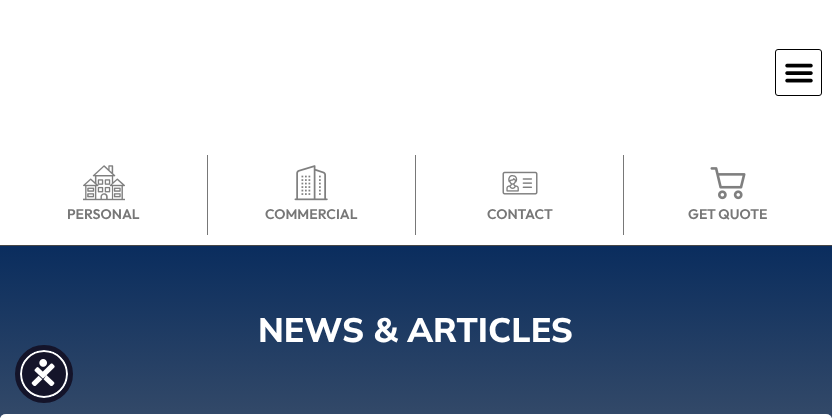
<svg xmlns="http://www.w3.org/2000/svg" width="832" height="418">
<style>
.a{font:600 14px Outfit;fill:#777}
.b{font:800 34px Mulish;fill:#fff}
</style>
<defs>
<linearGradient id="g1" gradientUnits="userSpaceOnUse" x1="416" y1="246" x2="416" y2="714"><stop offset="0" stop-color="#0a2d5e"/><stop offset="1" stop-color="#7a7a7a"/></linearGradient>
</defs>
<rect width="100%" height="100%" fill="#fff"/>
<rect fill="none" stroke="#000" x="775.5" y="49.5" width="46" height="46" rx="2.5"/>
<image href="1.png" x="785" y="63" width="28" height="20"/>
<path fill="#474747" d="M0 245h832v1H0z"/>
<path fill="#787878" d="M207 155h1v80H207z"/>
<image href="2.png" x="83" y="165" width="42" height="36"/>
<path fill="#787878" d="M415 155h1v80H415z"/>
<image href="3.png" x="294" y="165" width="34" height="36"/>
<path fill="#787878" d="M623 155h1v80H623z"/>
<image href="4.png" x="502" y="171" width="36" height="24"/>
<image href="5.png" x="710" y="167" width="36" height="33"/>
<path fill="url(#g1)" d="M0 246h832v172H0z"/>
<rect fill="#fff" y="414" width="832" height="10" rx="6"/>
<rect fill="#5d649433" filter="blur(2px)" x="20" y="352" width="48" height="48" rx="24"/>
<circle fill="#14142a" stroke="#fff" stroke-width="2" cx="44" cy="374" r="23"/>
<circle fill="none" stroke="#14142a" stroke-width="5" cx="44" cy="374" r="26.5"/>
<image href="6.png" x="31" y="359" width="24" height="27"/>
<text class="a" x="67" y="219">PERSONAL</text>
<text class="a" x="265" y="219">COMMERCIAL</text>
<text class="a" x="487" y="219">CONTACT</text>
<text class="a" x="688" y="219">GET QUOTE</text>
<text class="b" x="258" y="342">NEWS &amp; ARTICLES</text>
</svg>
